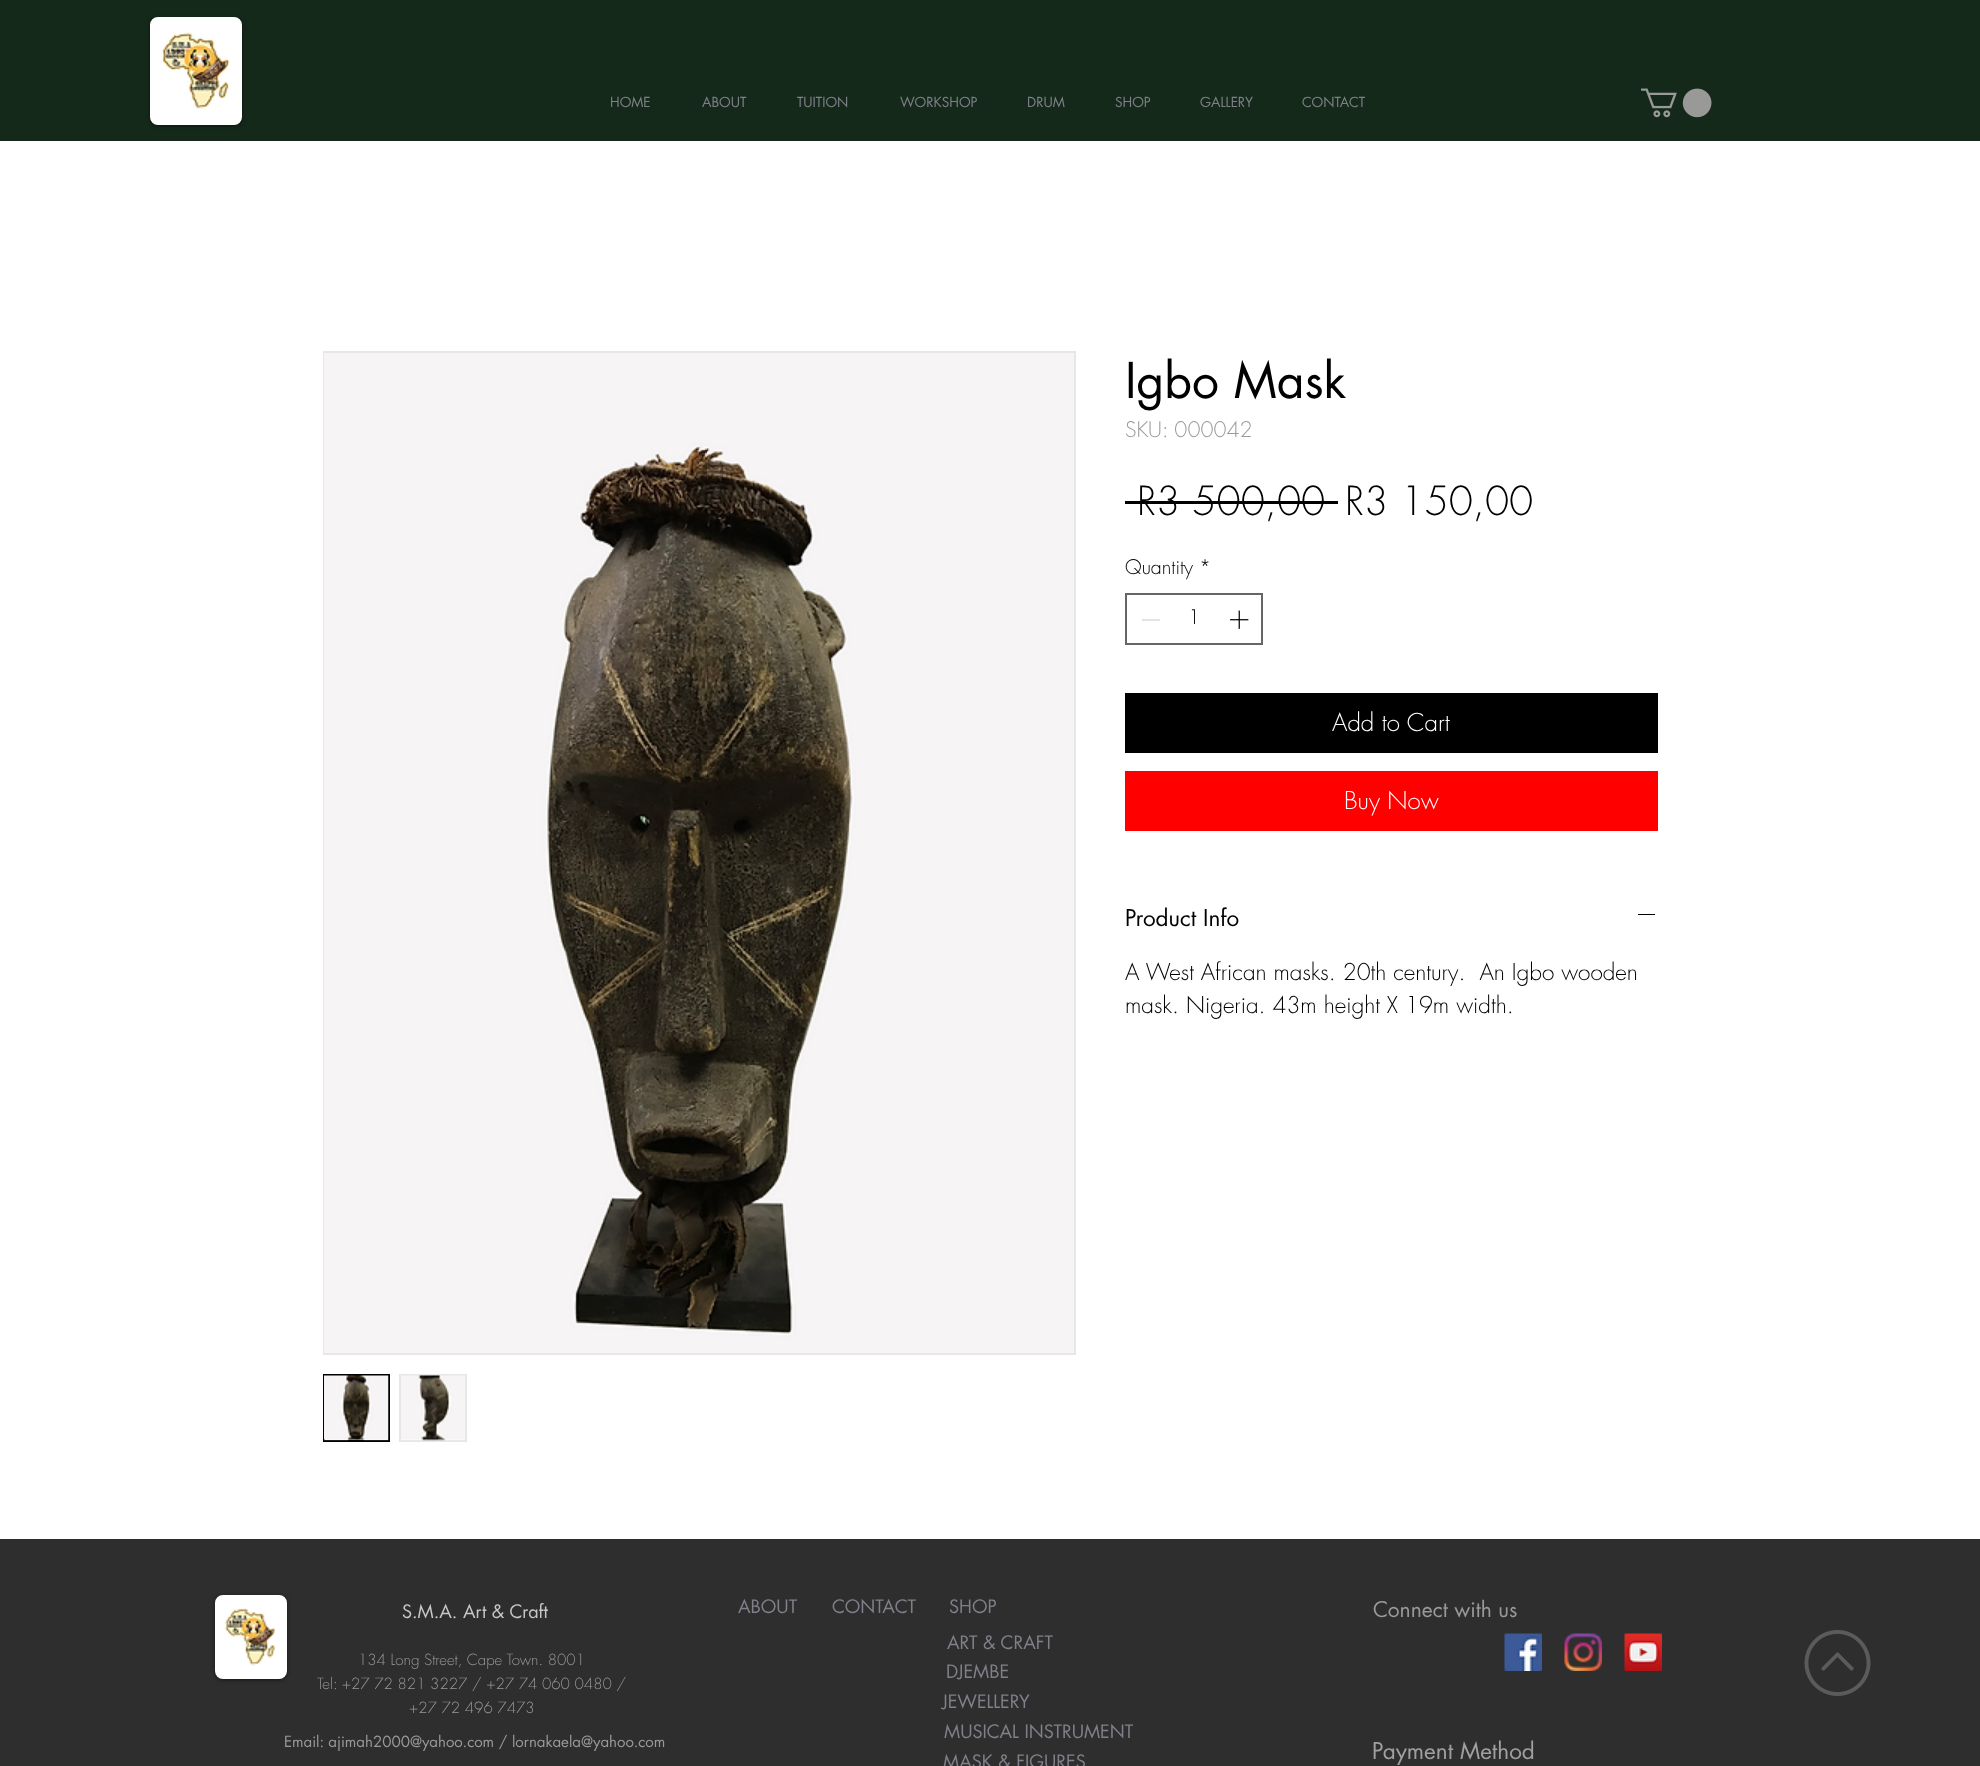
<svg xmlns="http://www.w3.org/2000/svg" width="1980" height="1766">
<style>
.a{font:13.5px futura;fill:#7f808a}
.b{font:48px futura;fill:#000}
.c{font:300 21px futura;fill:#999997}
.d{font:300 39px futura;fill:#000}
.e{font:300 19.5px futura;fill:#000}
.f{font:300 24px futura;fill:#fff}
.g{font:22.5px futura;fill:#000}
.h{font:300 22.5px futura;fill:#000}
.i{font:18px futura;fill:#c7c7c7}
.j{font:18px futura;fill:#7f808a}
.k{font:21px futura;fill:#999997}
.l{font:300 15px futura;fill:#999997}
.m{font:15px futura;fill:#999997}
.n{font:22.5px futura;fill:#a0a09f}
</style>
<rect width="100%" height="100%" fill="#fff"/>
<path fill="#15291b" d="M0 0h1980v141H0z"/>
<rect fill="#00000080" filter="blur(2px)" x="150" y="18" width="92" height="108" rx="8"/>
<rect fill="#fff" stroke="#fff" stroke-width="8" x="154" y="21" width="84" height="100" rx="4"/>
<image href="1.png" x="161" y="32" width="69" height="77"/>
<image href="2.png" x="1641" y="88" width="71" height="30"/>
<path fill="none" stroke="#e8e6e6" stroke-width="2" d="M324 352h751v1002H324z"/>
<image href="3.png" x="324" y="353" width="750" height="1000"/>
<path fill="none" stroke="#000" stroke-width="2" d="M324 1375h65v66H324z"/>
<image href="4.png" x="324" y="1375" width="65" height="66"/>
<path fill="none" stroke="#e8e6e6" stroke-width="2" d="M400 1375h66v66H400z"/>
<image href="5.png" x="401" y="1375" width="64" height="66"/>
<path fill="#000" d="M1125 501h213v3H1125z"/>
<path fill="none" stroke="#666" stroke-width="2" d="M1126 594h136v50H1126z"/>
<path fill="#e3e3e3" d="M1142 619h18v2H1142z"/>
<image href="6.png" x="1230" y="610" width="19" height="19"/>
<path fill="#000" d="M1125 693h533v60H1125z"/>
<path fill="#f00" d="M1125 771h533v60H1125z"/>
<path fill="#000" d="M1638 914h17v1H1638z"/>
<path fill="#2f2e2e" d="M0 1539h1980v227H0z"/>
<rect fill="#00000080" filter="blur(2px)" x="215" y="1596" width="72" height="84" rx="8"/>
<rect fill="#fff" stroke="#fff" stroke-width="8" x="219" y="1599" width="64" height="76" rx="4"/>
<image href="7.png" x="224" y="1608" width="52" height="58"/>
<image href="8.png" x="1504" y="1633" width="38" height="38"/>
<image href="9.png" x="1564" y="1633" width="38" height="38"/>
<image href="10.png" x="1624" y="1633" width="38" height="38"/>
<image href="11.png" x="1804" y="1630" width="67" height="66"/>
<text class="a" x="610" y="107">HOME</text>
<text class="a" x="702" y="107">ABOUT</text>
<text class="a" x="797" y="107">TUITION</text>
<text class="a" x="900" y="107">WORKSHOP</text>
<text class="a" x="1027" y="107">DRUM</text>
<text class="a" x="1115" y="107">SHOP</text>
<text class="a" x="1200" y="107">GALLERY</text>
<text class="a" x="1302" y="107">CONTACT</text>
<text class="b" x="1125" y="398">Igbo Mask</text>
<text class="c" x="1125" y="437">SKU: 000042</text>
<text class="d" x="1137" y="515">R3 500,00</text>
<text class="d" x="1345" y="515">R3 150,00</text>
<text class="e" x="1125" y="574">Quantity *</text>
<text class="e" x="1188" y="624">1</text>
<text class="f" x="1332" y="731">Add to Cart</text>
<text class="f" x="1344" y="809">Buy Now</text>
<text class="g" x="1125" y="926">Product Info</text>
<text class="h" xml:space="preserve" x="1125" y="980">A West African masks. 20th century.  An Igbo wooden</text>
<text class="h" x="1125" y="1013">mask. Nigeria. 43m height X 19m width.</text>
<text class="i" x="402" y="1618">S.M.A. Art &amp; Craft</text>
<text class="j" x="738" y="1613">ABOUT</text>
<text class="j" x="832" y="1613">CONTACT</text>
<text class="j" x="949" y="1613">SHOP</text>
<text class="k" x="1373" y="1617">Connect with us</text>
<text class="j" x="947" y="1649">ART &amp; CRAFT</text>
<text class="l" x="358" y="1665">134 Long Street, Cape Town. 8001</text>
<text class="l" x="317" y="1689">Tel: +27 72 821 3227 / +27 74 060 0480 /</text>
<text class="l" x="409" y="1713">+27 72 496 7473</text>
<text class="j" x="946" y="1678">DJEMBE</text>
<text class="j" x="942" y="1708">JEWELLERY</text>
<text class="j" x="944" y="1738">MUSICAL INSTRUMENT</text>
<text class="m" x="284" y="1747">Email: ajimah2000@yahoo.com / lornakaela@yahoo.com</text>
<text class="j" x="943" y="1768">MASK &amp; FIGURES</text>
<text class="n" x="1372" y="1759">Payment Method</text>
</svg>
